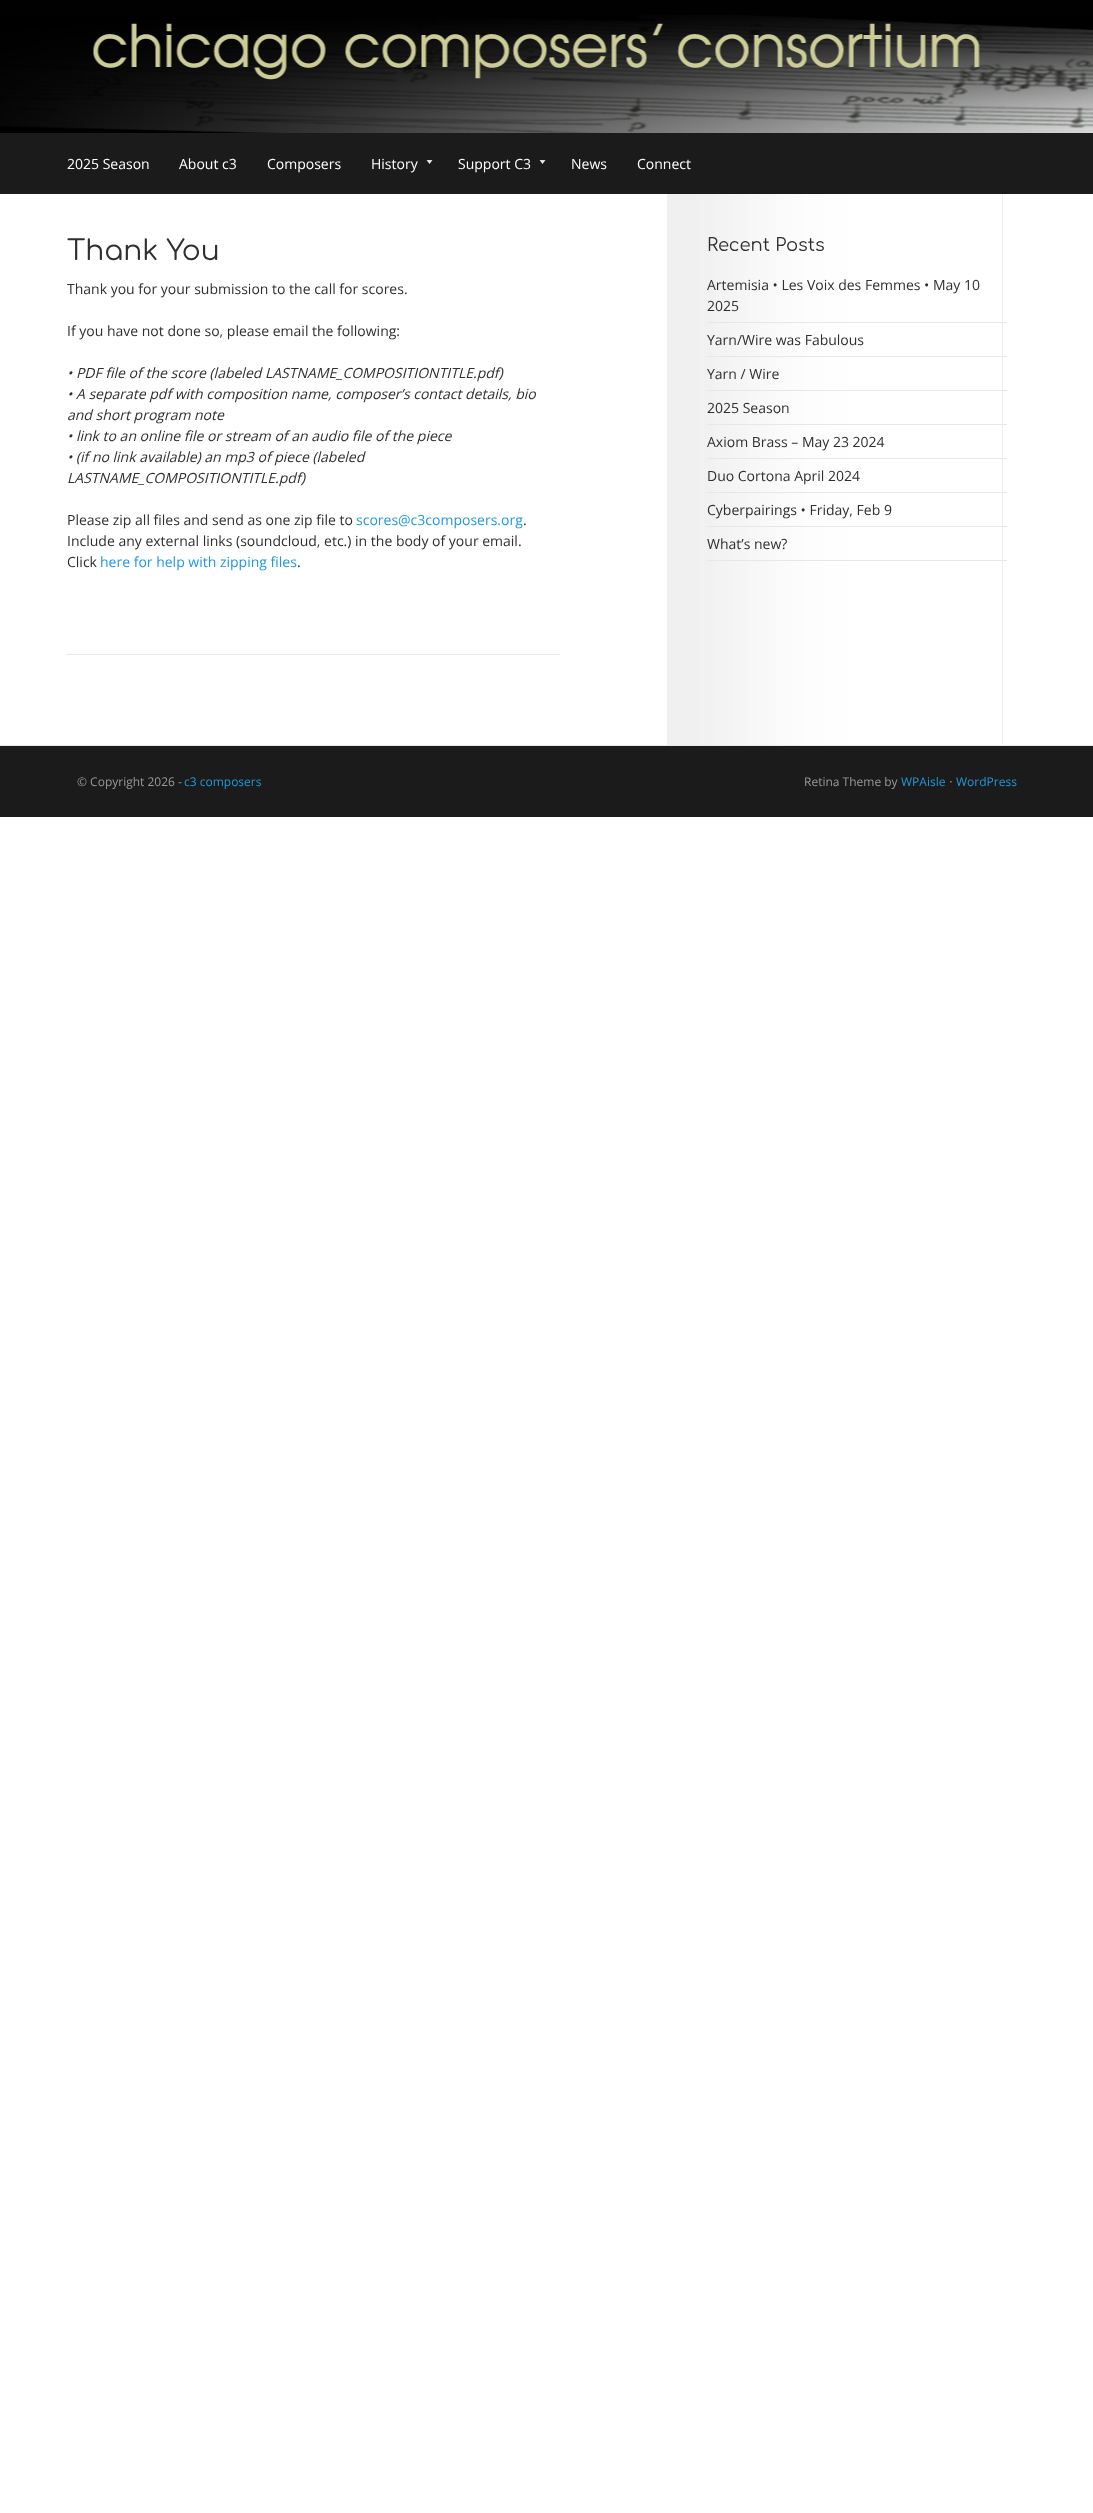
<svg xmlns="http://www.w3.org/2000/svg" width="1093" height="2513">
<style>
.a{font:14px Open Sans;fill:#fff}
.b{font:28px Comfortaa;fill:#2f2f2f}
.c{font:14px Open Sans;fill:#2f2f2f}
.d{font:italic 14px Open Sans;fill:#2f2f2f}
.e{font:14px Open Sans;fill:#29d}
.f{font:18px Comfortaa;fill:#2f2f2f}
.g{font:12px Open Sans;fill:#999}
.h{font:12px Open Sans;fill:#29d}
.i{font:12px DejaVu Sans;fill:#999}
</style>
<rect width="100%" height="100%" fill="#fff"/>
<path fill="#010101" d="M0 0h1093v15H0z"/>
<image href="1.png" x="0" y="15" width="1093" height="118"/>
<path fill="#1b1b1b" d="M0 133h1093v61H0z"/>
<image href="2.png" x="426" y="160" width="7" height="4"/>
<image href="2.png" x="539" y="160" width="7" height="4"/>
<path fill="#e7e7e7" d="M67 654h493v1H67z"/>
<image href="3.png" x="667" y="194" width="336" height="551"/>
<path fill="#e7e7e7" d="M707 322h300v1H707z"/>
<path fill="#e7e7e7" d="M707 356h300v1H707z"/>
<path fill="#e7e7e7" d="M707 390h300v1H707z"/>
<path fill="#e7e7e7" d="M707 424h300v1H707z"/>
<path fill="#e7e7e7" d="M707 458h300v1H707z"/>
<path fill="#e7e7e7" d="M707 492h300v1H707z"/>
<path fill="#e7e7e7" d="M707 526h300v1H707z"/>
<path fill="#e7e7e7" d="M707 560h300v1H707z"/>
<path fill="#1b1b1b" d="M0 746h1093v71H0z"/>
<path fill="#e7e7e7" d="M0 745h1093v1H0z"/>
<text class="a" x="67" y="169">2025 Season</text>
<text class="a" x="179" y="169">About c3</text>
<text class="a" x="267" y="169">Composers</text>
<text class="a" x="371" y="169">History</text>
<text class="a" x="458" y="169">Support C3</text>
<text class="a" x="571" y="169">News</text>
<text class="a" x="637" y="169">Connect</text>
<text class="b" x="67" y="260">Thank You</text>
<text class="c" x="67" y="294">Thank you for your submission to the call for scores.</text>
<text class="c" x="67" y="336">If you have not done so, please email the following:</text>
<text class="d" x="67" y="378">• PDF file of the score (labeled LASTNAME_COMPOSITIONTITLE.pdf)</text>
<text class="d" x="67" y="399">• A separate pdf with composition name, composer’s contact details, bio</text>
<text class="d" x="67" y="420">and short program note</text>
<text class="d" x="67" y="441">• link to an online file or stream of an audio file of the piece</text>
<text class="d" x="67" y="462">• (if no link available) an mp3 of piece (labeled</text>
<text class="d" x="67" y="483">LASTNAME_COMPOSITIONTITLE.pdf)</text>
<text class="c" x="67" y="525">Please zip all files and send as one zip file to</text>
<text class="e" x="356" y="525">scores@c3composers.org</text>
<text class="c" x="523" y="525">.</text>
<text class="c" x="67" y="546">Include any external links (soundcloud, etc.) in the body of your email.</text>
<text class="c" x="67" y="567">Click</text>
<text class="e" x="100" y="567">here for help with zipping files</text>
<text class="c" x="297" y="567">.</text>
<text class="f" x="707" y="251">Recent Posts</text>
<text class="c" x="707" y="290">Artemisia • Les Voix des Femmes • May 10</text>
<text class="c" x="707" y="311">2025</text>
<text class="c" x="707" y="345">Yarn/Wire was Fabulous</text>
<text class="c" x="707" y="379">Yarn / Wire</text>
<text class="c" x="707" y="413">2025 Season</text>
<text class="c" x="707" y="447">Axiom Brass – May 23 2024</text>
<text class="c" x="707" y="481">Duo Cortona April 2024</text>
<text class="c" x="707" y="515">Cyberpairings • Friday, Feb 9</text>
<text class="c" x="707" y="549">What’s new?</text>
<text class="g" x="77" y="786">© Copyright 2026 -</text>
<text class="h" x="184" y="786">c3 composers</text>
<text class="g" x="804" y="786">Retina Theme by</text>
<text class="h" x="901" y="786">WPAisle</text>
<text class="i" x="949" y="786">⋅</text>
<text class="h" x="956" y="786">WordPress</text>
</svg>
